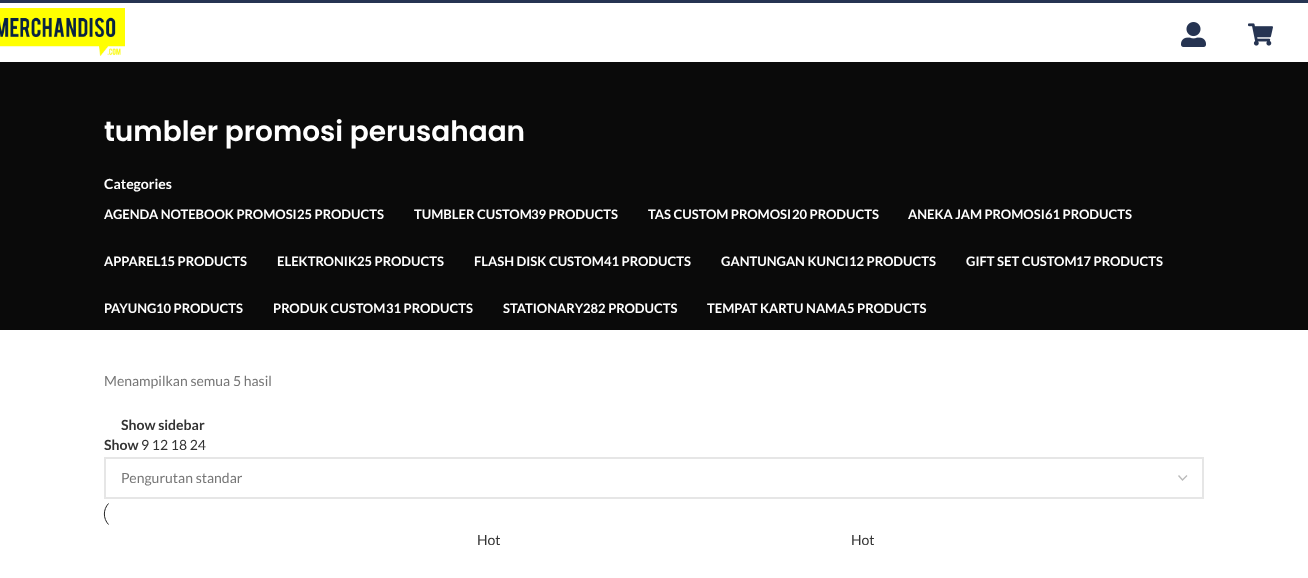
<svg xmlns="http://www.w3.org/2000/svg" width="1308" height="578">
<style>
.a{font:600 28px Poppins;fill:#fff}
.b{font:bold 14px Lato;fill:#fff}
.c{font:bold 13px Lato;fill:#fff}
.d{font:14px Lato;fill:#767676}
.e{font:bold 14px Lato;fill:#333}
.f{font:14px Lato;fill:#333}
</style>
<rect width="100%" height="100%" fill="#fff"/>
<path fill="#263452" d="M0 0h1308v3H0z"/>
<image href="1.png" x="0" y="8" width="125" height="48"/>
<image href="2.png" x="1181" y="22" width="25" height="25"/>
<image href="3.png" x="1248" y="23" width="25" height="23"/>
<path fill="#0a0a0a" d="M0 62h1308v268H0z"/>
<path fill="none" stroke="#bbb" stroke-width="1.4" d="M1178.5 475.5l4 4.5l4.5-4.5"/>
<path fill="none" stroke="#e6e6e6" stroke-width="2" d="M105 458h1098v40H105z"/>
<path fill="none" stroke="#242424" d="M108.5 524.5c-5.5-6-5.5-15 0-21"/>
<text class="a" x="104" y="141">tumbler promosi perusahaan</text>
<text class="b" x="104" y="189">Categories</text>
<text class="c" x="104" y="219">AGENDA NOTEBOOK PROMOSI</text>
<text class="c" x="297" y="219">25 PRODUCTS</text>
<text class="c" x="414" y="219">TUMBLER CUSTOM</text>
<text class="c" x="531" y="219">39 PRODUCTS</text>
<text class="c" x="648" y="219">TAS CUSTOM PROMOSI</text>
<text class="c" x="792" y="219">20 PRODUCTS</text>
<text class="c" x="908" y="219">ANEKA JAM PROMOSI</text>
<text class="c" x="1045" y="219">61 PRODUCTS</text>
<text class="c" x="104" y="266">APPAREL</text>
<text class="c" x="160" y="266">15 PRODUCTS</text>
<text class="c" x="357" y="266">25 PRODUCTS</text>
<text class="c" x="277" y="266">ELEKTRONIK</text>
<text class="c" x="474" y="266">FLASH DISK CUSTOM</text>
<text class="c" x="604" y="266">41 PRODUCTS</text>
<text class="c" x="721" y="266">GANTUNGAN KUNCI</text>
<text class="c" x="849" y="266">12 PRODUCTS</text>
<text class="c" x="966" y="266">GIFT SET CUSTOM</text>
<text class="c" x="1076" y="266">17 PRODUCTS</text>
<text class="c" x="104" y="313">PAYUNG</text>
<text class="c" x="156" y="313">10 PRODUCTS</text>
<text class="c" x="273" y="313">PRODUK CUSTOM</text>
<text class="c" x="386" y="313">31 PRODUCTS</text>
<text class="c" x="503" y="313">STATIONARY</text>
<text class="c" x="583" y="313">282 PRODUCTS</text>
<text class="c" x="707" y="313">TEMPAT KARTU NAMA</text>
<text class="c" x="847" y="313">5 PRODUCTS</text>
<text class="d" x="104" y="386">Menampilkan semua 5 hasil</text>
<text class="e" x="121" y="430">Show sidebar</text>
<text class="e" x="104" y="450">Show</text>
<text class="f" x="141" y="450">9 12 18 24</text>
<text class="d" x="121" y="483">Pengurutan standar</text>
<text class="f" x="477" y="545">Hot</text>
<text class="f" x="851" y="545">Hot</text>
</svg>
